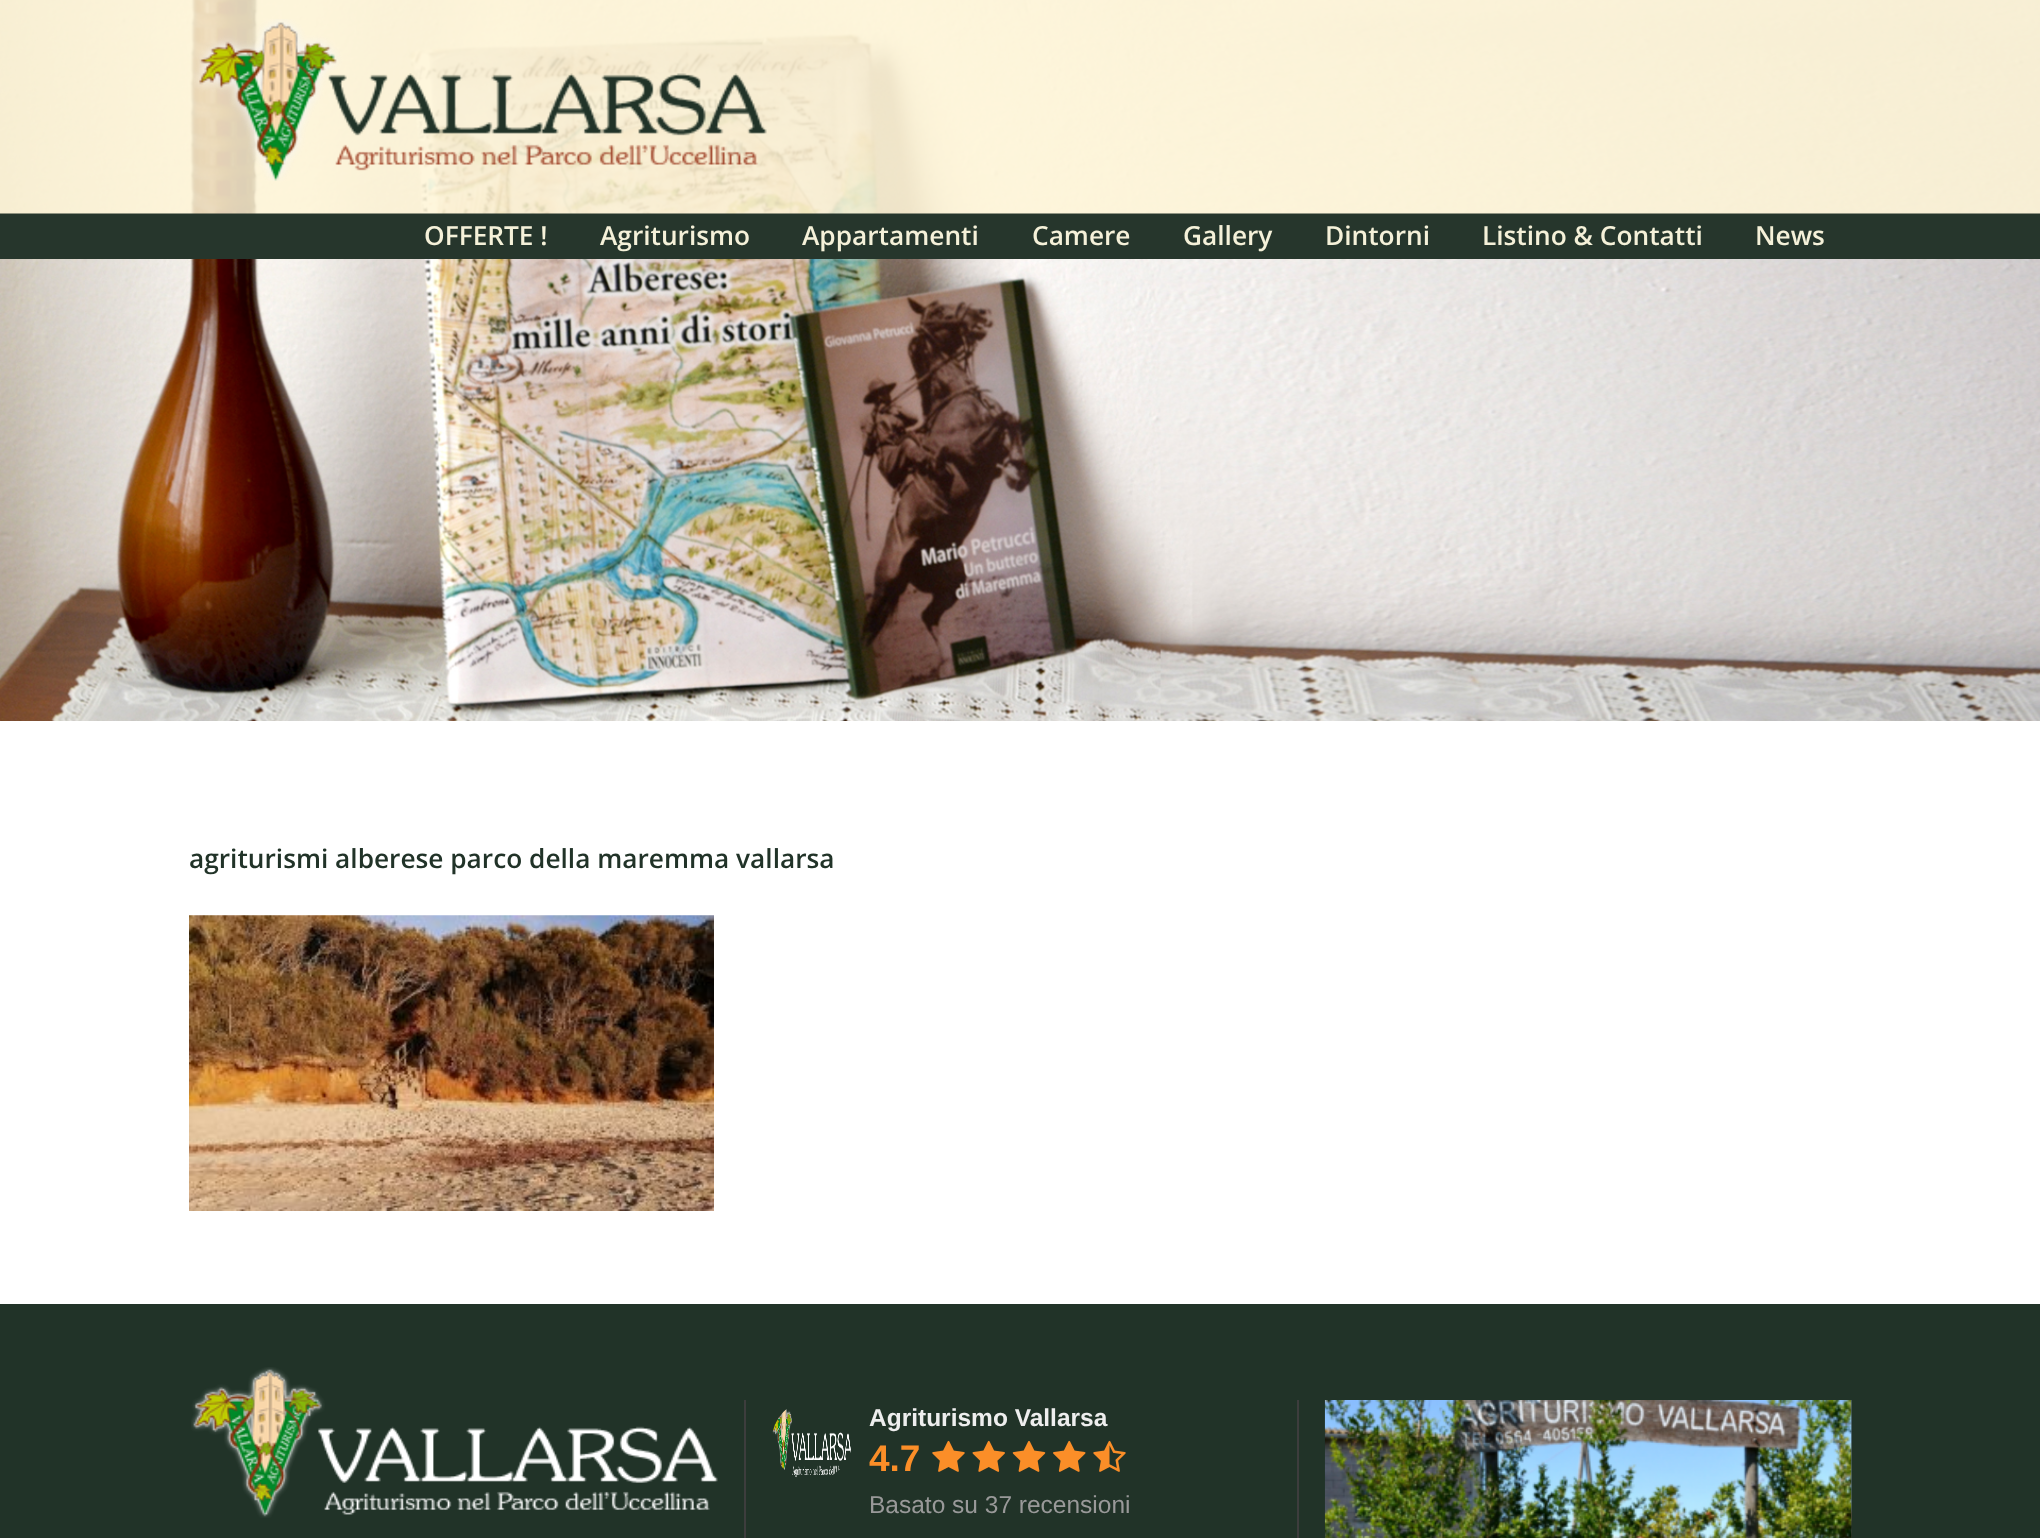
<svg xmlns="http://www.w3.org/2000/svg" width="2040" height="1538">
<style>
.a{font:600 26.25px Open Sans;fill:#f5f1d9}
.b{font:600 26.25px Open Sans;fill:#213328}
.c{font:bold 24.5px Liberation Sans;fill:#eee}
.d{font:bold 37px Liberation Sans;fill:#fb8e28}
.e{font:24.5px Liberation Sans;fill:#999}
</style>
<rect width="100%" height="100%" fill="#fff"/>
<image href="3.png" x="0" y="0" width="2040" height="721"/>
<image href="1.png" x="0" y="0" width="2040" height="259"/>
<image href="2.png" x="194" y="19" width="573" height="162"/>
<image href="4.png" x="189" y="915" width="525" height="296"/>
<path fill="#213328" d="M0 1304h2040v234H0z"/>
<image href="5.png" x="191" y="1367" width="527" height="151"/>
<path fill="#3d3d3d" d="M744 1400h2v138H744z"/>
<image href="6.png" x="772" y="1409" width="79" height="69"/>
<image href="7.png" x="932" y="1440" width="33" height="32"/>
<image href="8.png" x="972" y="1440" width="33" height="32"/>
<image href="9.png" x="1012" y="1441" width="34" height="31"/>
<image href="10.png" x="1053" y="1440" width="33" height="32"/>
<image href="11.png" x="1093" y="1440" width="33" height="32"/>
<path fill="#3d3d3d" d="M1297 1400h2v138H1297z"/>
<image href="12.png" x="1324" y="1400" width="528" height="138"/>
<image href="13.png" x="1851" y="1400" width="1" height="138"/>
<text class="a" x="424" y="245">OFFERTE !</text>
<text class="a" x="600" y="245">Agriturismo</text>
<text class="a" x="802" y="245">Appartamenti</text>
<text class="a" x="1032" y="245">Camere</text>
<text class="a" x="1183" y="245">Gallery</text>
<text class="a" x="1325" y="245">Dintorni</text>
<text class="a" x="1482" y="245">Listino &amp; Contatti</text>
<text class="a" x="1755" y="245">News</text>
<text class="b" x="189" y="868">agriturismi alberese parco della maremma vallarsa</text>
<text class="c" x="869" y="1426">Agriturismo Vallarsa</text>
<text class="d" x="869" y="1471">4.7</text>
<text class="e" x="869" y="1513">Basato su 37 recensioni</text>
</svg>
